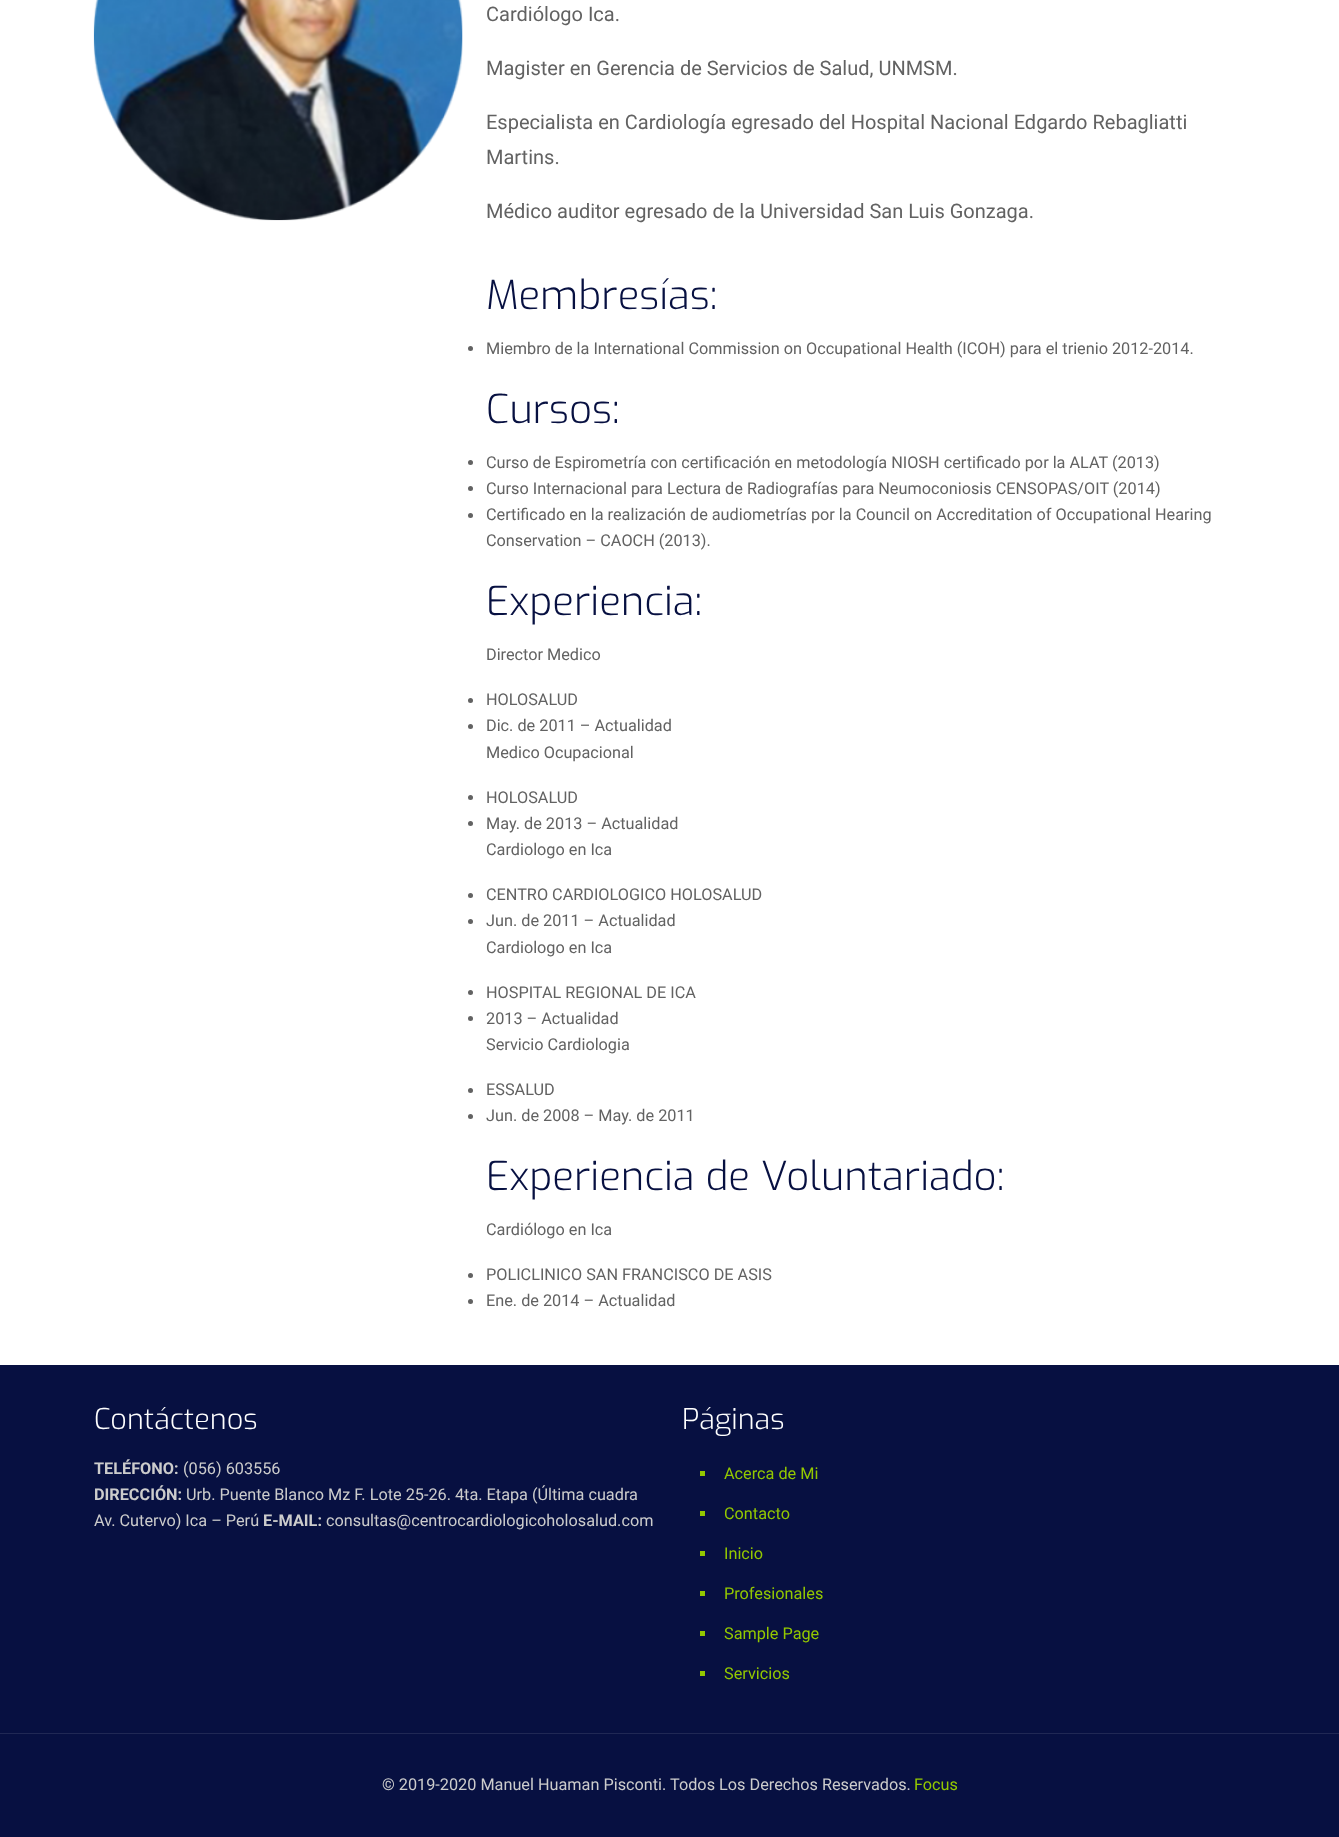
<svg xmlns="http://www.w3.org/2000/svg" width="1339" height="1837">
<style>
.a{font:20px Roboto;fill:#626262}
.b{font:300 40px Exo;fill:#071041}
.c{font:16.25px Roboto;fill:#626262}
.d{font:300 28.75px Exo;fill:#fff}
.e{font:bold 16.25px Roboto;fill:#ccc}
.f{font:16.25px Roboto;fill:#ccc}
.g{font:16.25px Roboto;fill:#93c800}
</style>
<rect width="100%" height="100%" fill="#fff"/>
<image href="1.png" x="93" y="0" width="370" height="221"/>
<circle fill="#626262" cx="470.5" cy="348.5" r="2.5"/>
<circle fill="#626262" cx="470.5" cy="462.5" r="2.5"/>
<circle fill="#626262" cx="470.5" cy="488.5" r="2.5"/>
<circle fill="#626262" cx="470.5" cy="515.5" r="2.5"/>
<circle fill="#626262" cx="470.5" cy="700.5" r="2.5"/>
<circle fill="#626262" cx="470.5" cy="726.5" r="2.5"/>
<circle fill="#626262" cx="470.5" cy="797.5" r="2.5"/>
<circle fill="#626262" cx="470.5" cy="823.5" r="2.5"/>
<circle fill="#626262" cx="470.5" cy="895.5" r="2.5"/>
<circle fill="#626262" cx="470.5" cy="921.5" r="2.5"/>
<circle fill="#626262" cx="470.5" cy="992.5" r="2.5"/>
<circle fill="#626262" cx="470.5" cy="1018.5" r="2.5"/>
<circle fill="#626262" cx="470.5" cy="1090.5" r="2.5"/>
<circle fill="#626262" cx="470.5" cy="1116.5" r="2.5"/>
<circle fill="#626262" cx="470.5" cy="1275.5" r="2.5"/>
<circle fill="#626262" cx="470.5" cy="1301.5" r="2.5"/>
<path fill="#071041" d="M0 1365h1339v472H0z"/>
<path fill="#93c800" d="M700 1471h5v5H700z"/>
<path fill="#93c800" d="M700 1511h5v5H700z"/>
<path fill="#93c800" d="M700 1551h5v5H700z"/>
<path fill="#93c800" d="M700 1591h5v5H700z"/>
<path fill="#93c800" d="M700 1631h5v5H700z"/>
<path fill="#93c800" d="M700 1671h5v5H700z"/>
<path fill="#202854" d="M0 1733h1339v1H0z"/>
<text class="a" x="486" y="21">Cardiólogo Ica.</text>
<text class="a" x="486" y="75">Magister en Gerencia de Servicios de Salud, UNMSM.</text>
<text class="a" x="486" y="129">Especialista en Cardiología egresado del Hospital Nacional Edgardo Rebagliatti</text>
<text class="a" x="486" y="164">Martins.</text>
<text class="a" x="486" y="218">Médico auditor egresado de la Universidad San Luis Gonzaga.</text>
<text class="b" x="486" y="309">Membresías:</text>
<text class="c" x="486" y="354">Miembro de la International Commission on Occupational Health (ICOH) para el trienio 2012-2014.</text>
<text class="b" x="486" y="423">Cursos:</text>
<text class="c" x="486" y="468">Curso de Espirometría con certificación en metodología NIOSH certificado por la ALAT (2013)</text>
<text class="c" x="486" y="494">Curso Internacional para Lectura de Radiografías para Neumoconiosis CENSOPAS/OIT (2014)</text>
<text class="c" x="486" y="520">Certificado en la realización de audiometrías por la Council on Accreditation of Occupational Hearing</text>
<text class="c" x="486" y="546">Conservation – CAOCH (2013).</text>
<text class="b" x="486" y="615">Experiencia:</text>
<text class="c" x="486" y="660">Director Medico</text>
<text class="c" x="486" y="705">HOLOSALUD</text>
<text class="c" x="486" y="731">Dic. de 2011 – Actualidad</text>
<text class="c" x="486" y="758">Medico Ocupacional</text>
<text class="c" x="486" y="803">HOLOSALUD</text>
<text class="c" x="486" y="829">May. de 2013 – Actualidad</text>
<text class="c" x="486" y="855">Cardiologo en Ica</text>
<text class="c" x="486" y="900">CENTRO CARDIOLOGICO HOLOSALUD</text>
<text class="c" x="486" y="926">Jun. de 2011 – Actualidad</text>
<text class="c" x="486" y="953">Cardiologo en Ica</text>
<text class="c" x="486" y="998">HOSPITAL REGIONAL DE ICA</text>
<text class="c" x="486" y="1024">2013 – Actualidad</text>
<text class="c" x="486" y="1050">Servicio Cardiologia</text>
<text class="c" x="486" y="1095">ESSALUD</text>
<text class="c" x="486" y="1121">Jun. de 2008 – May. de 2011</text>
<text class="b" x="486" y="1190">Experiencia de Voluntariado:</text>
<text class="c" x="486" y="1235">Cardiólogo en Ica</text>
<text class="c" x="486" y="1280">POLICLINICO SAN FRANCISCO DE ASIS</text>
<text class="c" x="486" y="1306">Ene. de 2014 – Actualidad</text>
<text class="d" x="94" y="1429">Contáctenos</text>
<text class="e" x="94" y="1474">TELÉFONO:</text>
<text class="f" x="183" y="1474">(056) 603556</text>
<text class="e" x="94" y="1500">DIRECCIÓN:</text>
<text class="f" x="186" y="1500">Urb. Puente Blanco Mz F. Lote 25-26. 4ta. Etapa (Última cuadra</text>
<text class="f" x="94" y="1526">Av. Cutervo) Ica – Perú</text>
<text class="e" x="263" y="1526">E-MAIL:</text>
<text class="f" x="326" y="1526">consultas@centrocardiologicoholosalud.com</text>
<text class="d" x="682" y="1429">Páginas</text>
<text class="g" x="724" y="1479">Acerca de Mi</text>
<text class="g" x="724" y="1519">Contacto</text>
<text class="g" x="724" y="1559">Inicio</text>
<text class="g" x="724" y="1599">Profesionales</text>
<text class="g" x="724" y="1639">Sample Page</text>
<text class="g" x="724" y="1679">Servicios</text>
<text class="f" x="382" y="1790">© 2019-2020 Manuel Huaman Pisconti. Todos Los Derechos Reservados.</text>
<text class="g" x="914" y="1790">Focus</text>
</svg>
